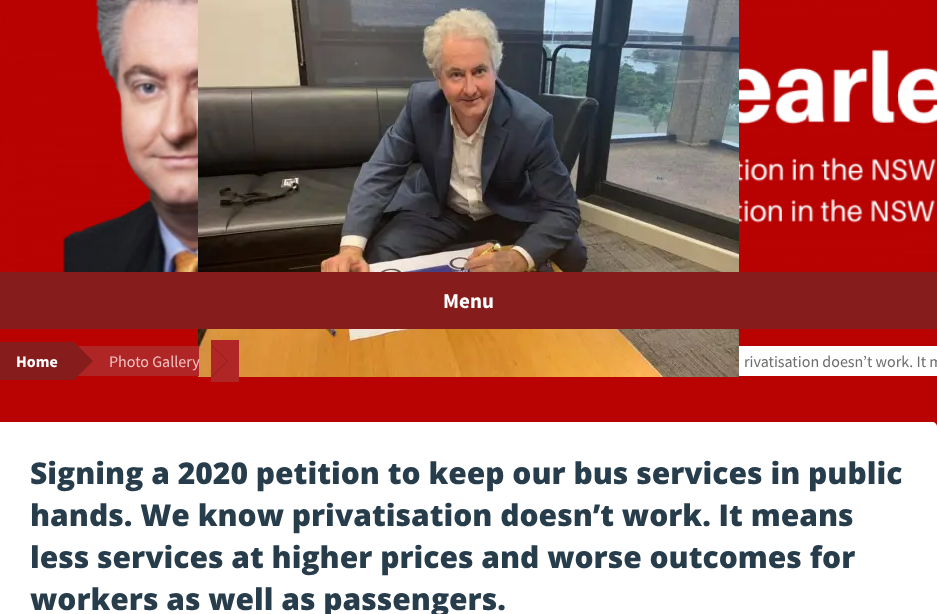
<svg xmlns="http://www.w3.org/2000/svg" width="937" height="614">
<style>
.a{font:bold 21px Source Sans Pro;fill:#fff}
.b{font:bold 16px Source Sans Pro;fill:#fff}
.c{font:16px Source Sans Pro;fill:#f0c1c1}
.d{font:16px Source Sans Pro;fill:#6d6d6d}
.e{font:800 30px Open Sans;fill:#283d4b}
</style>
<rect width="100%" height="100%" fill="#b90202"/>
<image href="1.png" x="0" y="0" width="937" height="272"/>
<image href="2.png" x="198" y="0" width="541" height="377"/>
<path fill="#861c1c" d="M0 272h937v57H0z"/>
<path fill="#861c1c" d="M0 342h74v38H0z"/>
<path fill="#b02525" d="M78 346h121v30H78z"/>
<path fill="#861c1c" d="M74 380v-38l19 19z"/>
<path fill="#b02525" d="M211 340h28v42H211z"/>
<path fill="#8f1e1e" d="M212 377v-32l16 16z"/>
<path fill="#b02525" d="M211 377v-32l16 16z"/>
<path fill="#fff" d="M739 346h198v30H739z"/>
<path fill="#fff" d="M0 422h932c3 0 5 2 5 5v187c0 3-2 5-5 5h-932z"/>
<text class="a" x="443" y="308">Menu</text>
<text class="b" x="16" y="367">Home</text>
<text class="c" x="109" y="367">Photo Gallery</text>
<text class="d" x="744" y="367">rivatisation doesn’t work. It m</text>
<text class="e" x="30" y="484">Signing a 2020 petition to keep our bus services in public</text>
<text class="e" x="30" y="526">hands. We know privatisation doesn’t work. It means</text>
<text class="e" x="30" y="568">less services at higher prices and worse outcomes for</text>
<text class="e" x="30" y="610">workers as well as passengers.</text>
</svg>
